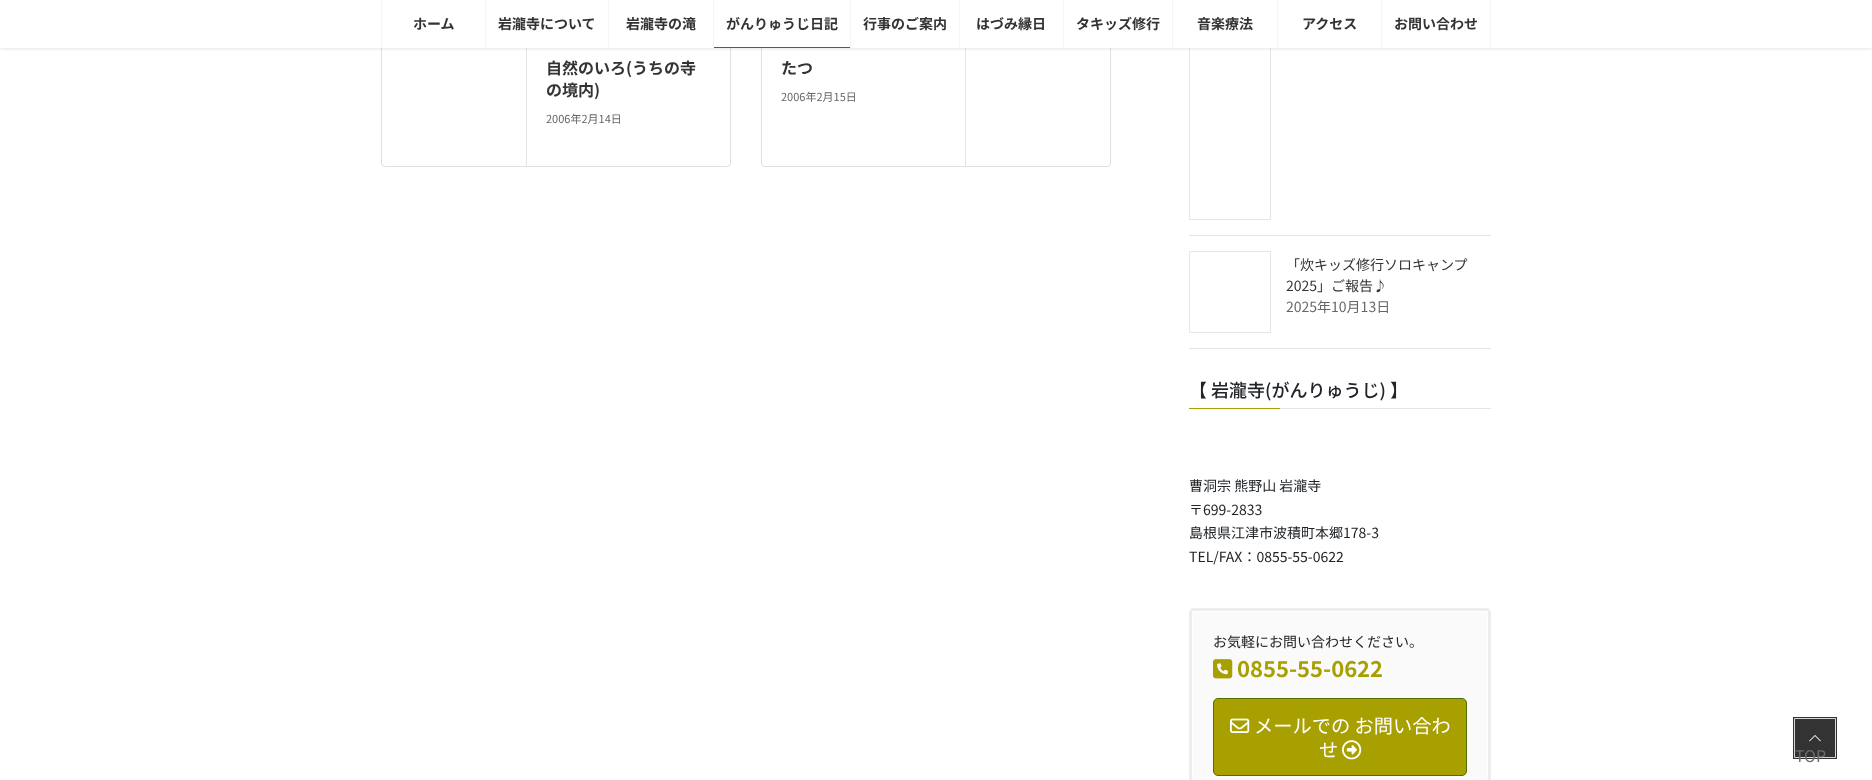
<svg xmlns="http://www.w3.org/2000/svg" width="1872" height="780">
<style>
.a{font:bold 14px Noto Sans JP;fill:#333}
.b{font:bold 16px Noto Sans JP;fill:#333}
.c{font:11px Noto Sans JP;fill:#666}
.d{font:14px Noto Sans JP;fill:#333}
.e{font:14px Noto Sans JP;fill:#666}
.f{font:500 18px Noto Sans JP;fill:#212529}
.g{font:14px Noto Sans JP;fill:#212529}
.h{font:bold 22px Noto Sans JP;fill:#a89f00}
.i{font:19.25px Noto Sans JP;fill:#fff}
.j{font:16px Noto Sans JP;fill:#6d6d6d}
</style>
<rect width="100%" height="100%" fill="#fff"/>
<rect fill="none" stroke="#dfdfdf" x="381.5" y="15.5" width="349" height="151" rx="3.5"/>
<path fill="#e5e5e5" d="M526 48h1v118H526z"/>
<rect fill="none" stroke="#dfdfdf" x="761.5" y="15.5" width="349" height="151" rx="3.5"/>
<path fill="#e5e5e5" d="M965 48h1v118H965z"/>
<path fill="none" stroke="#e5e5e5" d="M1189.5 -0.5h81v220H1189.5z"/>
<path fill="#0000001a" filter="blur(1.5px)" d="M0 1h1872v48H0z"/>
<path fill="#fff" d="M0 0h1872v48H0z"/>
<path fill="#f5f5f5" d="M381 0h1v48H381z"/>
<path fill="#f5f5f5" d="M485 0h1v48H485z"/>
<path fill="#f5f5f5" d="M608 0h1v48H608z"/>
<path fill="#f5f5f5" d="M713 0h1v48H713z"/>
<path fill="#4e7000" d="M714 47h136v1H714z"/>
<path fill="#f5f5f5" d="M850 0h1v48H850z"/>
<path fill="#f5f5f5" d="M959 0h1v48H959z"/>
<path fill="#f5f5f5" d="M1063 0h1v48H1063z"/>
<path fill="#f5f5f5" d="M1172 0h1v48H1172z"/>
<path fill="#f5f5f5" d="M1277 0h1v48H1277z"/>
<path fill="#f5f5f5" d="M1490 0h1v48H1490z"/>
<path fill="#f5f5f5" d="M1381 0h1v48H1381z"/>
<path fill="#e5e5e5" d="M1189 235h302v1H1189z"/>
<path fill="#e5e5e5" d="M1189 348h302v1H1189z"/>
<path fill="none" stroke="#e5e5e5" d="M1189.5 251.5h81v81H1189.5z"/>
<path fill="#e6e6e6" d="M1280 408h211v1H1280z"/>
<path fill="#a89f00" d="M1189 408h91v1H1189z"/>
<rect fill="none" stroke="#ededed" stroke-width="3" x="1190.5" y="609.5" width="299" height="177" rx="3.5"/>
<rect fill="#fafafa" x="1192" y="611" width="296" height="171" rx="2"/>
<path fill="#fefefe" fill-rule="evenodd" d="M1194 611c-1 0-2 1-2 2v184c0 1 1 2 2 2h292c1 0 2-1 2-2v-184c0-1-1-2-2-2zm-1 1v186h294v-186z"/>
<image href="1.png" x="1213" y="659" width="20" height="20"/>
<rect fill="#a89f00" stroke="#4e7000" x="1213.5" y="698.5" width="253" height="77" rx="4.5"/>
<image href="2.png" x="1230" y="718" width="20" height="15"/>
<image href="3.png" x="1342" y="740" width="20" height="20"/>
<path fill="none" stroke="#333" stroke-width="2" d="M1794 718h42v40H1794z"/>
<path fill="none" stroke="#d6d6d6" d="M1794.5 718.5h41v39H1794.5z"/>
<path fill="#333" d="M1795 719h40v38H1795z"/>
<image href="4.png" x="1809" y="735" width="12" height="7"/>
<text class="a" x="413" y="29">ホーム</text>
<text class="a" x="498" y="29">岩瀧寺について</text>
<text class="a" x="626" y="29">岩瀧寺の滝</text>
<text class="a" x="726" y="29">がんりゅうじ日記</text>
<text class="a" x="863" y="29">行事のご案内</text>
<text class="a" x="976" y="29">はづみ縁日</text>
<text class="a" x="1076" y="29">タキッズ修行</text>
<text class="a" x="1197" y="29">音楽療法</text>
<text class="a" x="1302" y="29">アクセス</text>
<text class="a" x="1394" y="29">お問い合わせ</text>
<text class="b" x="546" y="74">自然のいろ(うちの寺</text>
<text class="b" x="546" y="96">の境内)</text>
<text class="c" x="546" y="123">2006年2月14日</text>
<text class="b" x="781" y="74">たつ</text>
<text class="c" x="781" y="101">2006年2月15日</text>
<text class="d" x="1286" y="270">「炊キッズ修行ソロキャンプ</text>
<text class="d" x="1286" y="291">2025」ご報告♪</text>
<text class="e" x="1286" y="312">2025年10月13日</text>
<text class="f" x="1189" y="397">【 岩瀧寺(がんりゅうじ) 】</text>
<text class="g" x="1189" y="491">曹洞宗 熊野山 岩瀧寺</text>
<text class="g" x="1189" y="515">〒699-2833</text>
<text class="g" x="1189" y="538">島根県江津市波積町本郷178-3</text>
<text class="g" x="1189" y="562">TEL/FAX：0855-55-0622</text>
<text class="g" x="1213" y="647">お気軽にお問い合わせください。</text>
<text class="h" x="1237" y="677">0855-55-0622</text>
<text class="i" x="1254" y="733">メールでの お問い合わ</text>
<text class="i" x="1319" y="757">せ</text>
<text class="j" x="1795" y="762">TOP</text>
</svg>
